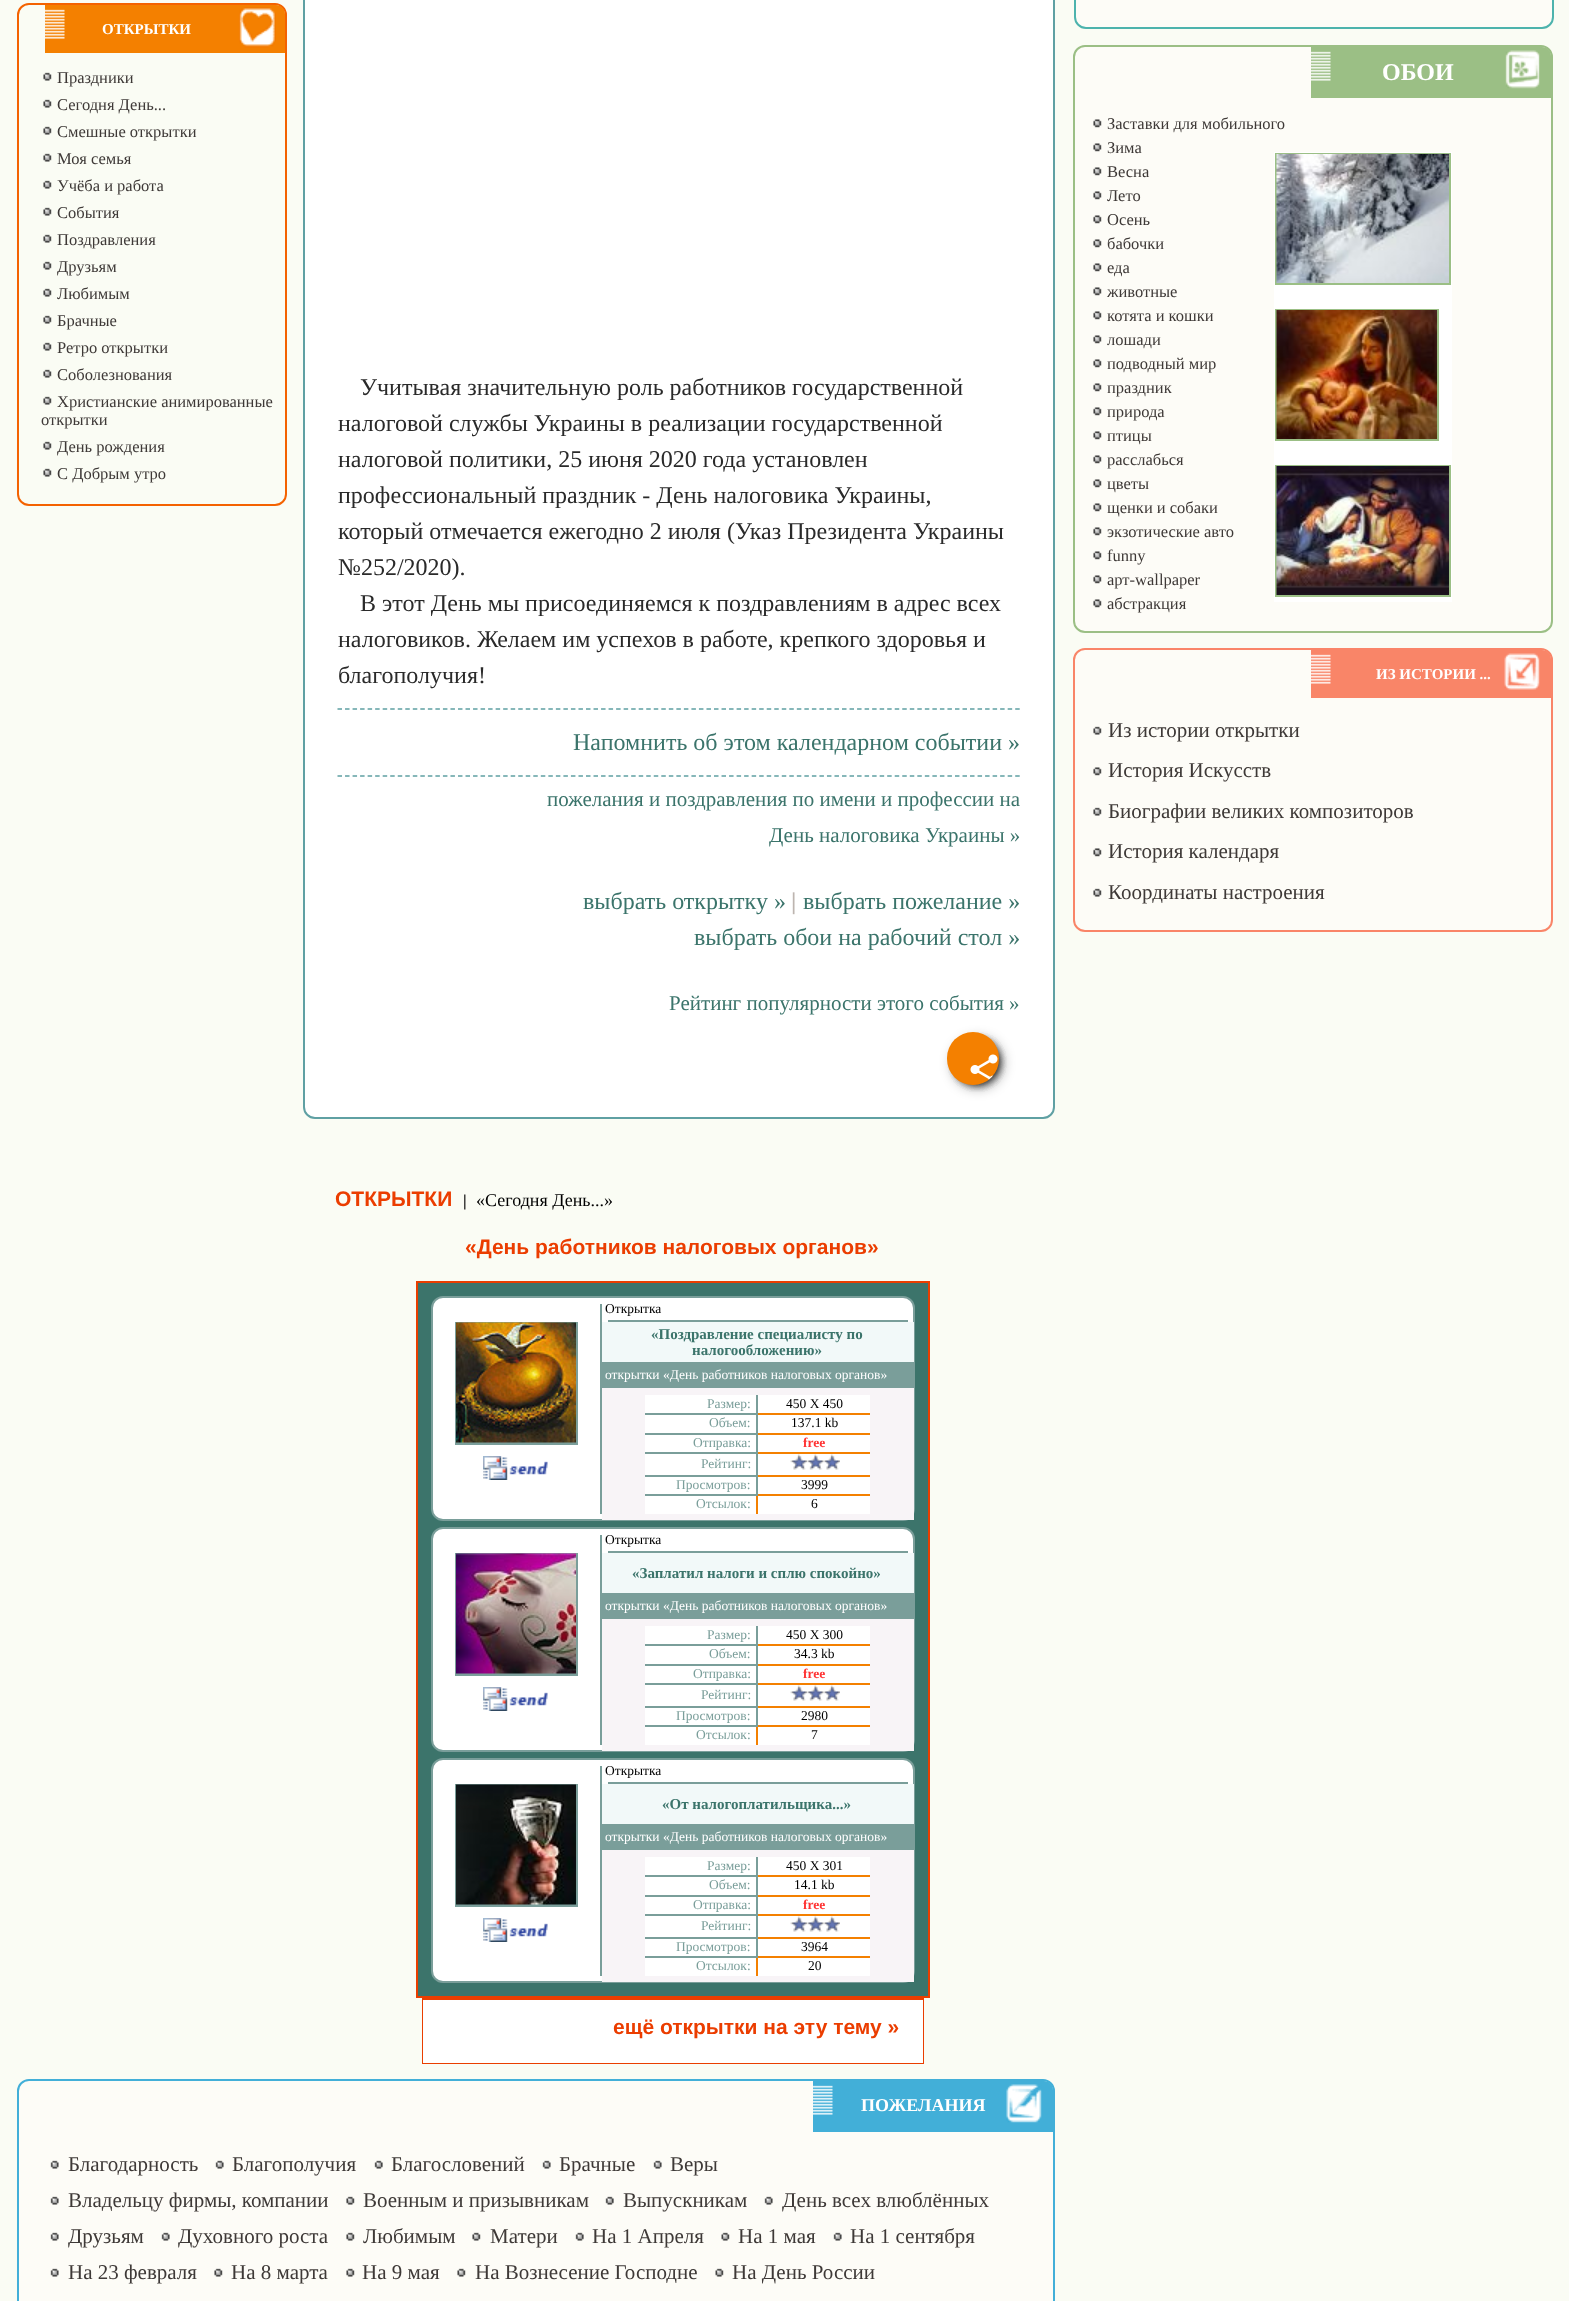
<svg xmlns="http://www.w3.org/2000/svg" width="1569" height="2301">
<style>
.a{font:bold 15px Liberation Serif;fill:#fff}
.b{font:16.5px Liberation Serif;fill:#3e3937}
.c{font:24px Liberation Serif;fill:#2a2a2a}
.d{font:24px Liberation Serif;fill:#3b746b}
.e{font:21px Liberation Serif;fill:#3b746b}
.f{font:bold 24px Liberation Serif;fill:#bdb5b0}
.g{font:bold 21px Liberation Sans;fill:#eb3d00}
.h{font:bold 16.5px Liberation Serif;fill:#000}
.i{font:18px Liberation Serif;fill:#000}
.j{font:13.5px Liberation Serif;fill:#000}
.k{font:bold 15px Liberation Serif;fill:#3b746b}
.l{font:13.5px Liberation Serif;fill:#fff}
.m{font:13.5px Liberation Serif;fill:#7a9e9a}
.n{font:bold 13.5px Liberation Serif;fill:#f33}
.o{font:bold 18px Liberation Serif;fill:#fff}
.p{font:21px Liberation Serif;fill:#3e3937}
.q{font:bold 24px Liberation Serif;fill:#fff}
</style>
<rect width="100%" height="100%" fill="#fafcf4"/>
<rect fill="none" stroke="#f46200" stroke-width="2" x="18" y="4" width="268" height="501" rx="11"/>
<path fill="#f48000" d="M45 5h231c5 0 9 4 9 9v39h-240z"/>
<image href="1.png" x="45" y="9" width="20" height="30"/>
<image href="2.png" x="239" y="7" width="37" height="41"/>
<image href="3.png" x="43" y="72" width="9" height="9"/>
<image href="3.png" x="43" y="99" width="9" height="9"/>
<image href="3.png" x="43" y="126" width="9" height="9"/>
<image href="3.png" x="43" y="153" width="9" height="9"/>
<image href="3.png" x="43" y="180" width="9" height="9"/>
<image href="3.png" x="43" y="207" width="9" height="9"/>
<image href="3.png" x="43" y="234" width="9" height="9"/>
<image href="3.png" x="43" y="261" width="9" height="9"/>
<image href="3.png" x="43" y="288" width="9" height="9"/>
<image href="3.png" x="43" y="315" width="9" height="9"/>
<image href="3.png" x="43" y="342" width="9" height="9"/>
<image href="3.png" x="43" y="369" width="9" height="9"/>
<image href="3.png" x="43" y="396" width="9" height="9"/>
<image href="3.png" x="43" y="441" width="9" height="9"/>
<image href="3.png" x="43" y="468" width="9" height="9"/>
<rect fill="#fff" stroke="#5fa0a3" stroke-width="2" x="304" y="-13" width="750" height="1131" rx="11"/>
<path fill="none" stroke="#5fa0a3" stroke-width="1.5" stroke-dasharray="4.5 3.03" d="M337.5 709h682.5"/>
<path fill="none" stroke="#5fa0a3" stroke-width="1.5" stroke-dasharray="4.5 3.03" d="M337.5 776h682.5"/>
<rect fill="#0000004d" filter="blur(6px)" x="951" y="1037" width="53" height="52" rx="26"/>
<rect fill="#0000004d" filter="blur(4px)" x="956" y="1041" width="42" height="42" rx="21"/>
<rect fill="#0000004d" filter="blur(4px)" x="956" y="1041" width="42" height="42" rx="21"/>
<rect fill="#0000004d" filter="blur(4px)" x="956" y="1041" width="42" height="42" rx="21"/>
<rect fill="#0000004d" filter="blur(4px)" x="956" y="1041" width="42" height="42" rx="21"/>
<rect fill="#0000004d" filter="blur(4px)" x="956" y="1041" width="42" height="42" rx="21"/>
<rect fill="#0000004d" filter="blur(4px)" x="956" y="1041" width="42" height="42" rx="21"/>
<rect fill="#f48000" x="947" y="1032" width="52" height="53" rx="26"/>
<image href="4.png" x="970" y="1054" width="28" height="26"/>
<path fill="#3c746b" stroke="#ea3e00" stroke-width="2" d="M417 1282h512v715H417z"/>
<rect fill="#fff" stroke="#7a9e9a" stroke-width="2" x="432" y="1297" width="482" height="223" rx="11"/>
<path fill="#7a9e9a" d="M600 1304h2v210H600z"/>
<path fill="#7a9e9a" d="M455 1322h123v123H455z"/>
<image href="5.png" x="456" y="1322" width="120" height="121"/>
<image href="6.png" x="483" y="1456" width="65" height="24"/>
<path fill="#7a9e9a" d="M608 1320h300v2H608z"/>
<path fill="#f2f9f9" d="M602 1322h312v40H602z"/>
<path fill="#7a9e9a" d="M602 1362h312v2H602z"/>
<path fill="#7a9e9a" d="M602 1364h311v24H602z"/>
<path fill="#f8f4f7" d="M602 1388h312v132H602z"/>
<path fill="#fff" d="M645 1395h225v119H645z"/>
<path fill="#7a9e9a" d="M756 1395h2v39H756z"/>
<path fill="#7a9e9a" d="M645 1413h113v2H645z"/>
<path fill="#f48000" d="M758 1413h112v2H758z"/>
<path fill="#7a9e9a" d="M645 1433h113v2H645z"/>
<path fill="#f48000" d="M758 1433h112v2H758z"/>
<path fill="#7a9e9a" d="M756 1434h2v42H756z"/>
<path fill="#7a9e9a" d="M645 1452h113v2H645z"/>
<path fill="#f48000" d="M758 1452h112v2H758z"/>
<path fill="#7a9e9a" d="M645 1475h113v2H645z"/>
<path fill="#f48000" d="M758 1475h112v2H758z"/>
<image href="7.png" x="790" y="1454" width="17" height="16"/>
<image href="8.png" x="807" y="1454" width="17" height="16"/>
<image href="9.png" x="824" y="1454" width="16" height="16"/>
<path fill="#7a9e9a" d="M756 1476h2v20H756z"/>
<path fill="#7a9e9a" d="M645 1494h113v2H645z"/>
<path fill="#f48000" d="M758 1494h112v2H758z"/>
<path fill="#f48000" d="M756 1496h2v18H756z"/>
<rect fill="#fff" stroke="#7a9e9a" stroke-width="2" x="432" y="1528" width="482" height="223" rx="11"/>
<path fill="#7a9e9a" d="M600 1535h2v210H600z"/>
<path fill="#7a9e9a" d="M455 1553h123v123H455z"/>
<image href="10.png" x="456" y="1553" width="120" height="121"/>
<image href="6.png" x="483" y="1687" width="65" height="24"/>
<path fill="#7a9e9a" d="M608 1551h300v2H608z"/>
<path fill="#f2f9f9" d="M602 1553h312v40H602z"/>
<path fill="#7a9e9a" d="M602 1593h312v2H602z"/>
<path fill="#7a9e9a" d="M602 1595h311v24H602z"/>
<path fill="#f8f4f7" d="M602 1619h312v132H602z"/>
<path fill="#fff" d="M645 1626h225v119H645z"/>
<path fill="#7a9e9a" d="M756 1626h2v39H756z"/>
<path fill="#7a9e9a" d="M645 1644h113v2H645z"/>
<path fill="#f48000" d="M758 1644h112v2H758z"/>
<path fill="#7a9e9a" d="M645 1664h113v2H645z"/>
<path fill="#f48000" d="M758 1664h112v2H758z"/>
<path fill="#7a9e9a" d="M756 1665h2v42H756z"/>
<path fill="#7a9e9a" d="M645 1683h113v2H645z"/>
<path fill="#f48000" d="M758 1683h112v2H758z"/>
<path fill="#7a9e9a" d="M645 1706h113v2H645z"/>
<path fill="#f48000" d="M758 1706h112v2H758z"/>
<image href="7.png" x="790" y="1685" width="17" height="16"/>
<image href="8.png" x="807" y="1685" width="17" height="16"/>
<image href="9.png" x="824" y="1685" width="16" height="16"/>
<path fill="#7a9e9a" d="M756 1707h2v20H756z"/>
<path fill="#7a9e9a" d="M645 1725h113v2H645z"/>
<path fill="#f48000" d="M758 1725h112v2H758z"/>
<path fill="#f48000" d="M756 1727h2v18H756z"/>
<rect fill="#fff" stroke="#7a9e9a" stroke-width="2" x="432" y="1759" width="482" height="223" rx="11"/>
<path fill="#7a9e9a" d="M600 1766h2v210H600z"/>
<path fill="#7a9e9a" d="M455 1784h123v123H455z"/>
<image href="11.png" x="456" y="1784" width="120" height="121"/>
<image href="6.png" x="483" y="1918" width="65" height="24"/>
<path fill="#7a9e9a" d="M608 1782h300v2H608z"/>
<path fill="#f2f9f9" d="M602 1784h312v40H602z"/>
<path fill="#7a9e9a" d="M602 1824h312v2H602z"/>
<path fill="#7a9e9a" d="M602 1826h311v24H602z"/>
<path fill="#f8f4f7" d="M602 1850h312v132H602z"/>
<path fill="#fff" d="M645 1857h225v119H645z"/>
<path fill="#7a9e9a" d="M756 1857h2v39H756z"/>
<path fill="#7a9e9a" d="M645 1875h113v2H645z"/>
<path fill="#f48000" d="M758 1875h112v2H758z"/>
<path fill="#7a9e9a" d="M645 1895h113v2H645z"/>
<path fill="#f48000" d="M758 1895h112v2H758z"/>
<path fill="#7a9e9a" d="M756 1896h2v42H756z"/>
<path fill="#7a9e9a" d="M645 1914h113v2H645z"/>
<path fill="#f48000" d="M758 1914h112v2H758z"/>
<path fill="#7a9e9a" d="M645 1937h113v2H645z"/>
<path fill="#f48000" d="M758 1937h112v2H758z"/>
<image href="7.png" x="790" y="1916" width="17" height="16"/>
<image href="8.png" x="807" y="1916" width="17" height="16"/>
<image href="9.png" x="824" y="1916" width="16" height="16"/>
<path fill="#7a9e9a" d="M756 1938h2v20H756z"/>
<path fill="#7a9e9a" d="M645 1956h113v2H645z"/>
<path fill="#f48000" d="M758 1956h112v2H758z"/>
<path fill="#f48000" d="M756 1958h2v18H756z"/>
<path fill="none" stroke="#ea3e00" stroke-width="2" d="M423 1999h500v64H423z"/>
<path fill="#fff" d="M423 2000h500v63H423z"/>
<rect fill="#fdfcf7" stroke="#42afd8" stroke-width="2" x="18" y="2080" width="1036" height="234" rx="11"/>
<path fill="#42afd8" d="M813 2081h231c5 0 9 4 9 9v42h-240z"/>
<image href="12.png" x="813" y="2085" width="20" height="30"/>
<image href="13.png" x="1006" y="2084" width="36" height="39"/>
<image href="14.png" x="50" y="2160" width="9" height="9"/>
<image href="14.png" x="215" y="2160" width="9" height="9"/>
<image href="15.png" x="374" y="2160" width="9" height="9"/>
<image href="14.png" x="542" y="2160" width="9" height="9"/>
<image href="14.png" x="653" y="2160" width="9" height="9"/>
<image href="14.png" x="50" y="2196" width="9" height="9"/>
<image href="16.png" x="346" y="2196" width="9" height="9"/>
<image href="15.png" x="605" y="2196" width="9" height="9"/>
<image href="14.png" x="764" y="2196" width="9" height="9"/>
<image href="14.png" x="50" y="2232" width="9" height="9"/>
<image href="14.png" x="161" y="2232" width="9" height="9"/>
<image href="16.png" x="346" y="2232" width="9" height="9"/>
<image href="16.png" x="472" y="2232" width="9" height="9"/>
<image href="15.png" x="575" y="2232" width="9" height="9"/>
<image href="17.png" x="721" y="2232" width="9" height="9"/>
<image href="14.png" x="833" y="2232" width="9" height="9"/>
<image href="14.png" x="50" y="2268" width="9" height="9"/>
<image href="16.png" x="214" y="2268" width="9" height="9"/>
<image href="16.png" x="346" y="2268" width="9" height="9"/>
<image href="16.png" x="457" y="2268" width="9" height="9"/>
<image href="17.png" x="715" y="2268" width="9" height="9"/>
<rect fill="#fdfcf7" stroke="#4db3ad" stroke-width="2" x="1075" y="-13" width="478" height="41" rx="11"/>
<rect fill="#fdfcf7" stroke="#9bbf85" stroke-width="2" x="1074" y="46" width="478" height="586" rx="11"/>
<path fill="#9bbf85" d="M1311 47h231c5 0 9 4 9 9v42h-240z"/>
<image href="18.png" x="1311" y="51" width="20" height="30"/>
<image href="19.png" x="1505" y="50" width="35" height="39"/>
<image href="20.png" x="1093" y="119" width="9" height="9"/>
<image href="20.png" x="1093" y="143" width="9" height="9"/>
<path fill="#fff" d="M1274 152h178v450H1274z"/>
<path fill="none" stroke="#9bbf85" stroke-width="2" d="M1276 154h174v130H1276z"/>
<image href="21.png" x="1276" y="154" width="173" height="129"/>
<path fill="none" stroke="#9bbf85" stroke-width="2" d="M1276 310h162v130H1276z"/>
<image href="22.png" x="1276" y="310" width="161" height="129"/>
<path fill="none" stroke="#9bbf85" stroke-width="2" d="M1276 466h174v130H1276z"/>
<image href="23.png" x="1276" y="466" width="173" height="129"/>
<image href="20.png" x="1093" y="167" width="9" height="9"/>
<image href="20.png" x="1093" y="191" width="9" height="9"/>
<image href="20.png" x="1093" y="215" width="9" height="9"/>
<image href="20.png" x="1093" y="239" width="9" height="9"/>
<image href="20.png" x="1093" y="263" width="9" height="9"/>
<image href="20.png" x="1093" y="287" width="9" height="9"/>
<image href="20.png" x="1093" y="311" width="9" height="9"/>
<image href="20.png" x="1093" y="335" width="9" height="9"/>
<image href="20.png" x="1093" y="359" width="9" height="9"/>
<image href="20.png" x="1093" y="383" width="9" height="9"/>
<image href="20.png" x="1093" y="407" width="9" height="9"/>
<image href="20.png" x="1093" y="431" width="9" height="9"/>
<image href="20.png" x="1093" y="455" width="9" height="9"/>
<image href="20.png" x="1093" y="479" width="9" height="9"/>
<image href="20.png" x="1093" y="503" width="9" height="9"/>
<image href="20.png" x="1093" y="527" width="9" height="9"/>
<image href="20.png" x="1093" y="551" width="9" height="9"/>
<image href="20.png" x="1093" y="575" width="9" height="9"/>
<image href="20.png" x="1093" y="599" width="9" height="9"/>
<rect fill="#fdfcf7" stroke="#f98568" stroke-width="2" x="1074" y="649" width="478" height="282" rx="11"/>
<path fill="#f98568" d="M1311 650h231c5 0 9 4 9 9v39h-240z"/>
<image href="24.png" x="1311" y="654" width="20" height="30"/>
<image href="25.png" x="1504" y="653" width="36" height="37"/>
<image href="16.png" x="1093" y="726" width="9" height="9"/>
<image href="20.png" x="1093" y="767" width="9" height="9"/>
<image href="16.png" x="1093" y="807" width="9" height="9"/>
<image href="20.png" x="1093" y="848" width="9" height="9"/>
<image href="16.png" x="1093" y="888" width="9" height="9"/>
<text class="a" x="102" y="34">ОТКРЫТКИ</text>
<text class="b" x="57" y="83">Праздники</text>
<text class="b" x="57" y="110">Сегодня День...</text>
<text class="b" x="57" y="137">Смешные открытки</text>
<text class="b" x="57" y="164">Моя семья</text>
<text class="b" x="57" y="191">Учёба и работа</text>
<text class="b" x="57" y="218">События</text>
<text class="b" x="57" y="245">Поздравления</text>
<text class="b" x="57" y="272">Друзьям</text>
<text class="b" x="57" y="299">Любимым</text>
<text class="b" x="57" y="326">Брачные</text>
<text class="b" x="57" y="353">Ретро открытки</text>
<text class="b" x="57" y="380">Соболезнования</text>
<text class="b" x="57" y="407">Христианские анимированные</text>
<text class="b" x="41" y="425">открытки</text>
<text class="b" x="57" y="452">День рождения</text>
<text class="b" x="57" y="479">С Добрым утро</text>
<text class="c" x="360" y="395">Учитывая значительную роль работников государственной</text>
<text class="c" x="338" y="431">налоговой службы Украины в реализации государственной</text>
<text class="c" x="338" y="467">налоговой политики, 25 июня 2020 года установлен</text>
<text class="c" x="338" y="503">профессиональный праздник - День налоговика Украины,</text>
<text class="c" x="338" y="539">который отмечается ежегодно 2 июля (Указ Президента Украины</text>
<text class="c" x="338" y="575">№252/2020).</text>
<text class="c" x="360" y="611">В этот День мы присоединяемся к поздравлениям в адрес всех</text>
<text class="c" x="338" y="647">налоговиков. Желаем им успехов в работе, крепкого здоровья и</text>
<text class="c" x="338" y="683">благополучия!</text>
<text class="d" x="573" y="750">Напомнить об этом календарном событии »</text>
<text class="e" x="547" y="806">пожелания и поздравления по имени и профессии на</text>
<text class="e" x="769" y="842">День налоговика Украины »</text>
<text class="d" x="583" y="909">выбрать открытку »</text>
<text class="f" x="791" y="909">|</text>
<text class="d" x="803" y="909">выбрать пожелание »</text>
<text class="d" x="694" y="945">выбрать обои на рабочий стол »</text>
<text class="e" x="669" y="1010">Рейтинг популярности этого события »</text>
<text class="g" x="335" y="1206">ОТКРЫТКИ</text>
<text class="h" x="463" y="1206">|</text>
<text class="i" x="476" y="1206">«Сегодня День...»</text>
<text class="g" x="465" y="1254">«День работников налоговых органов»</text>
<text class="j" x="605" y="1313">Открытка</text>
<text class="k" x="651" y="1339">«Поздравление специалисту по</text>
<text class="k" x="692" y="1355">налогообложению»</text>
<text class="l" x="605" y="1379">открытки «День работников налоговых органов»</text>
<text class="m" x="707" y="1408">Размер:</text>
<text class="j" x="786" y="1408">450 Х 450</text>
<text class="m" x="709" y="1427">Объем:</text>
<text class="j" x="791" y="1427">137.1 kb</text>
<text class="m" x="693" y="1447">Отправка:</text>
<text class="n" x="803" y="1447">free</text>
<text class="m" x="701" y="1468">Рейтинг:</text>
<text class="m" x="676" y="1489">Просмотров:</text>
<text class="j" x="801" y="1489">3999</text>
<text class="m" x="696" y="1508">Отсылок:</text>
<text class="j" x="811" y="1508">6</text>
<text class="j" x="605" y="1544">Открытка</text>
<text class="k" x="632" y="1578">«Заплатил налоги и сплю спокойно»</text>
<text class="l" x="605" y="1610">открытки «День работников налоговых органов»</text>
<text class="m" x="707" y="1639">Размер:</text>
<text class="j" x="786" y="1639">450 Х 300</text>
<text class="m" x="709" y="1658">Объем:</text>
<text class="j" x="794" y="1658">34.3 kb</text>
<text class="m" x="693" y="1678">Отправка:</text>
<text class="n" x="803" y="1678">free</text>
<text class="m" x="701" y="1699">Рейтинг:</text>
<text class="m" x="676" y="1720">Просмотров:</text>
<text class="j" x="801" y="1720">2980</text>
<text class="m" x="696" y="1739">Отсылок:</text>
<text class="j" x="811" y="1739">7</text>
<text class="j" x="605" y="1775">Открытка</text>
<text class="k" x="662" y="1809">«От налогоплатильщика...»</text>
<text class="l" x="605" y="1841">открытки «День работников налоговых органов»</text>
<text class="m" x="707" y="1870">Размер:</text>
<text class="j" x="786" y="1870">450 Х 301</text>
<text class="m" x="709" y="1889">Объем:</text>
<text class="j" x="794" y="1889">14.1 kb</text>
<text class="m" x="693" y="1909">Отправка:</text>
<text class="n" x="803" y="1909">free</text>
<text class="m" x="701" y="1930">Рейтинг:</text>
<text class="m" x="676" y="1951">Просмотров:</text>
<text class="j" x="801" y="1951">3964</text>
<text class="m" x="696" y="1970">Отсылок:</text>
<text class="j" x="808" y="1970">20</text>
<text class="g" x="613" y="2034">ещё открытки на эту тему »</text>
<text class="o" x="861" y="2111">ПОЖЕЛАНИЯ</text>
<text class="p" x="68" y="2171">Благодарность</text>
<text class="p" x="232" y="2171">Благополучия</text>
<text class="p" x="391" y="2171">Благословений</text>
<text class="p" x="559" y="2171">Брачные</text>
<text class="p" x="670" y="2171">Веры</text>
<text class="p" x="68" y="2207">Владельцу фирмы, компании</text>
<text class="p" x="363" y="2207">Военным и призывникам</text>
<text class="p" x="623" y="2207">Выпускникам</text>
<text class="p" x="782" y="2207">День всех влюблённых</text>
<text class="p" x="68" y="2243">Друзьям</text>
<text class="p" x="178" y="2243">Духовного роста</text>
<text class="p" x="363" y="2243">Любимым</text>
<text class="p" x="490" y="2243">Матери</text>
<text class="p" x="592" y="2243">На 1 Апреля</text>
<text class="p" x="738" y="2243">На 1 мая</text>
<text class="p" x="850" y="2243">На 1 сентября</text>
<text class="p" x="68" y="2279">На 23 февраля</text>
<text class="p" x="231" y="2279">На 8 марта</text>
<text class="p" x="362" y="2279">На 9 мая</text>
<text class="p" x="475" y="2279">На Вознесение Господне</text>
<text class="p" x="732" y="2279">На День России</text>
<text class="q" x="1382" y="80">ОБОИ</text>
<text class="b" x="1107" y="129">Заставки для мобильного</text>
<text class="b" x="1107" y="153">Зима</text>
<text class="b" x="1107" y="177">Весна</text>
<text class="b" x="1107" y="201">Лето</text>
<text class="b" x="1107" y="225">Осень</text>
<text class="b" x="1107" y="249">бабочки</text>
<text class="b" x="1107" y="273">еда</text>
<text class="b" x="1107" y="297">животные</text>
<text class="b" x="1107" y="321">котята и кошки</text>
<text class="b" x="1107" y="345">лошади</text>
<text class="b" x="1107" y="369">подводный мир</text>
<text class="b" x="1107" y="393">праздник</text>
<text class="b" x="1107" y="417">природа</text>
<text class="b" x="1107" y="441">птицы</text>
<text class="b" x="1107" y="465">расслабься</text>
<text class="b" x="1107" y="489">цветы</text>
<text class="b" x="1107" y="513">щенки и собаки</text>
<text class="b" x="1107" y="537">экзотические авто</text>
<text class="b" x="1107" y="561">funny</text>
<text class="b" x="1107" y="585">арт-wallpaper</text>
<text class="b" x="1107" y="609">абстракция</text>
<text class="a" x="1376" y="679">ИЗ ИСТОРИИ ...</text>
<text class="p" x="1108" y="737">Из истории открытки</text>
<text class="p" x="1108" y="777">История Искусств</text>
<text class="p" x="1108" y="818">Биографии великих композиторов</text>
<text class="p" x="1108" y="858">История календаря</text>
<text class="p" x="1108" y="899">Координаты настроения</text>
</svg>
